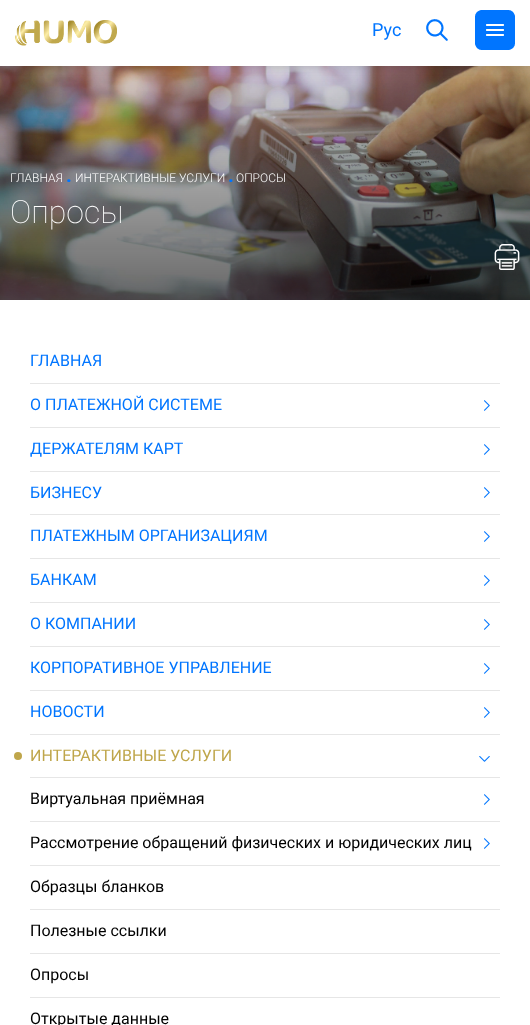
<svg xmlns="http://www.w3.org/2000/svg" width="530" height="1025">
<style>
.a{font:18px Roboto;fill:#0075ff}
.b{font:300 12px Roboto;fill:#fff}
.c{font:bold 20px Roboto;fill:#0075ff}
.d{font:100 32px Roboto;fill:#fff}
.e{font:16px Roboto;fill:#0075ff}
.f{font:16px Roboto;fill:#bfa64b}
.g{font:16px Roboto;fill:#000}
</style>
<rect width="100%" height="100%" fill="#fff"/>
<image href="1.png" x="0" y="66" width="530" height="234"/>
<path fill="#01010133" filter="blur(5px)" d="M0 0h530v66H0z"/>
<path fill="#fff" d="M0 0h530v66H0z"/>
<image href="2.png" x="15" y="20" width="102" height="26"/>
<image href="3.png" x="426" y="19" width="22" height="22"/>
<image href="4.png" x="475" y="10" width="40" height="40"/>
<image href="5.png" x="494" y="244" width="26" height="26"/>
<path fill="#e6e6e6" d="M30 383h470v1H30z"/>
<image href="6.png" x="484" y="400" width="6" height="11"/>
<path fill="#e6e6e6" d="M30 427h470v1H30z"/>
<image href="6.png" x="484" y="444" width="6" height="11"/>
<path fill="#e6e6e6" d="M30 471h470v1H30z"/>
<image href="6.png" x="484" y="487" width="6" height="11"/>
<path fill="#e6e6e6" d="M30 514h470v1H30z"/>
<image href="6.png" x="484" y="531" width="6" height="11"/>
<path fill="#e6e6e6" d="M30 558h470v1H30z"/>
<image href="6.png" x="484" y="575" width="6" height="11"/>
<path fill="#e6e6e6" d="M30 602h470v1H30z"/>
<image href="6.png" x="484" y="619" width="6" height="11"/>
<path fill="#e6e6e6" d="M30 646h470v1H30z"/>
<image href="6.png" x="484" y="663" width="6" height="11"/>
<path fill="#e6e6e6" d="M30 690h470v1H30z"/>
<image href="6.png" x="484" y="707" width="6" height="11"/>
<path fill="#e6e6e6" d="M30 734h470v1H30z"/>
<image href="7.png" x="479" y="756" width="11" height="6"/>
<path fill="#e6e6e6" d="M30 777h470v1H30z"/>
<circle fill="#bfa64b" cx="18" cy="756" r="4"/>
<image href="6.png" x="484" y="794" width="6" height="11"/>
<path fill="#e6e6e6" d="M30 821h470v1H30z"/>
<image href="6.png" x="484" y="838" width="6" height="11"/>
<path fill="#e6e6e6" d="M30 865h470v1H30z"/>
<path fill="#e6e6e6" d="M30 909h470v1H30z"/>
<path fill="#e6e6e6" d="M30 953h470v1H30z"/>
<path fill="#e6e6e6" d="M30 997h470v1H30z"/>
<text class="a" x="372" y="36">Рус</text>
<text class="b" x="10" y="182">ГЛАВНАЯ</text>
<text class="c" x="66" y="182">.</text>
<text class="b" x="75" y="182">ИНТЕРАКТИВНЫЕ УСЛУГИ</text>
<text class="c" x="228" y="182">.</text>
<text class="b" x="236" y="182">ОПРОСЫ</text>
<text class="d" x="10" y="223">Опросы</text>
<text class="e" x="30" y="366">ГЛАВНАЯ</text>
<text class="e" x="30" y="410">О ПЛАТЕЖНОЙ СИСТЕМЕ</text>
<text class="e" x="30" y="454">ДЕРЖАТЕЛЯМ КАРТ</text>
<text class="e" x="30" y="498">БИЗНЕСУ</text>
<text class="e" x="30" y="541">ПЛАТЕЖНЫМ ОРГАНИЗАЦИЯМ</text>
<text class="e" x="30" y="585">БАНКАМ</text>
<text class="e" x="30" y="629">О КОМПАНИИ</text>
<text class="e" x="30" y="673">КОРПОРАТИВНОЕ УПРАВЛЕНИЕ</text>
<text class="e" x="30" y="717">НОВОСТИ</text>
<text class="f" x="30" y="761">ИНТЕРАКТИВНЫЕ УСЛУГИ</text>
<text class="g" x="30" y="804">Виртуальная приёмная</text>
<text class="g" x="30" y="848">Рассмотрение обращений физических и юридических лиц</text>
<text class="g" x="30" y="892">Образцы бланков</text>
<text class="g" x="30" y="936">Полезные ссылки</text>
<text class="g" x="30" y="980">Опросы</text>
<text class="g" x="30" y="1024">Открытые данные</text>
</svg>
